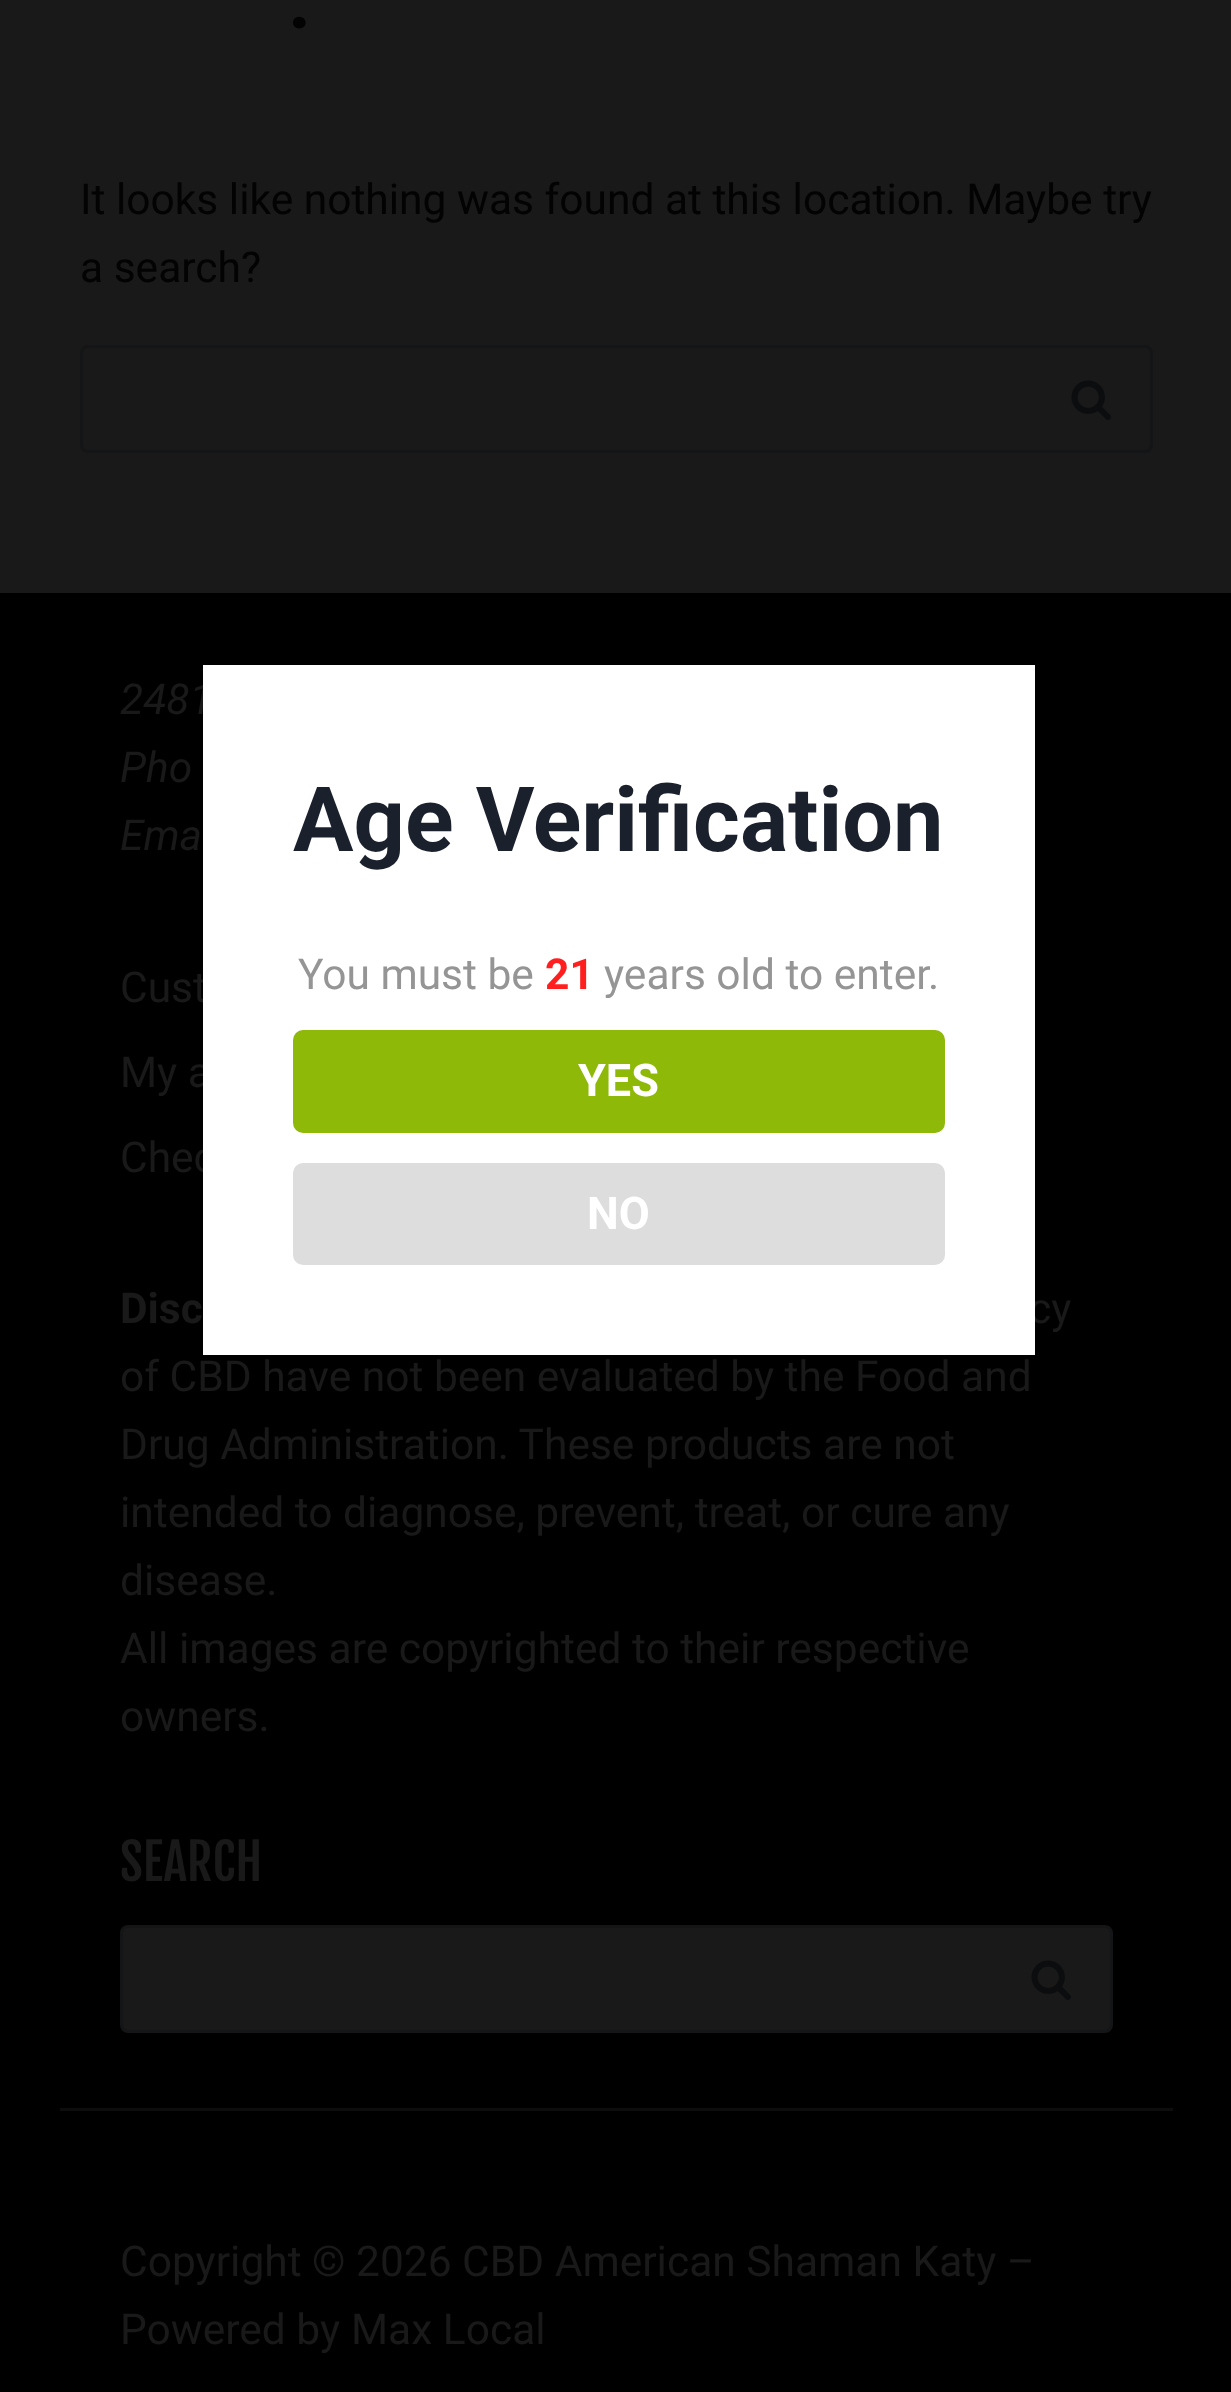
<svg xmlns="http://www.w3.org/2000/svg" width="1231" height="2392">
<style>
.a{font:bold 80px Roboto;fill:#030304}
.b{font:42.5px Roboto;fill:#030304}
.c{font:italic 42.5px Roboto;fill:#191919}
.d{font:42.5px Roboto;fill:#191919}
.e{font:bold 42.5px Roboto;fill:#191919}
.f{font:50px Fjalla One;fill:#191919}
.g{font:bold 90px Roboto;fill:#1a202c}
.h{font:42.5px Roboto;fill:#959595}
.i{font:bold 42.5px Roboto;fill:#ff1f1f}
.j{font:bold 45px Roboto;fill:#fff}
</style>
<rect width="100%" height="100%" fill="#191919"/>
<rect fill="none" stroke="#141516" stroke-width="3" x="81.5" y="346.5" width="1070" height="105" rx="6.5"/>
<image href="1.png" x="1071" y="380" width="40" height="40"/>
<path fill="#000" d="M0 593h1231v1799H0z"/>
<rect fill="#191919" stroke="#141516" stroke-width="3" x="121.5" y="1926.5" width="990" height="105" rx="6.5"/>
<image href="2.png" x="1031" y="1960" width="40" height="40"/>
<path fill="#0d0d0d" d="M60 2108h1113v3H60z"/>
<path fill="#000" filter="blur(19px)" d="M203 665h832v690H203z"/>
<text class="a" x="288" y="28">.</text>
<text class="b" x="80" y="214">It looks like nothing was found at this location. Maybe try</text>
<text class="b" x="80" y="282">a search?</text>
<text class="c" x="120" y="714">2481</text>
<text class="c" x="120" y="782">Pho</text>
<text class="c" x="120" y="850">Ema</text>
<text class="d" x="120" y="1002">Cust</text>
<text class="d" x="120" y="1087">My a</text>
<text class="d" x="120" y="1172">Chec</text>
<text class="e" x="120" y="1323">Disc</text>
<text class="d" x="1029" y="1323">cy</text>
<text class="d" x="120" y="1391">of CBD have not been evaluated by the Food and</text>
<text class="d" x="120" y="1459">Drug Administration. These products are not</text>
<text class="d" x="120" y="1527">intended to diagnose, prevent, treat, or cure any</text>
<text class="d" x="120" y="1595">disease.</text>
<text class="d" x="120" y="1663">All images are copyrighted to their respective</text>
<text class="d" x="120" y="1731">owners.</text>
<text class="f" x="120" y="1881">SEARCH</text>
<text class="d" x="120" y="2276">Copyright © 2026 CBD American Shaman Katy –</text>
<text class="d" x="120" y="2344">Powered by</text>
<text class="d" x="351" y="2344">Max Local</text>
<path fill="#fff" d="M203 665h832v690H203z"/>
<text class="g" x="293" y="851">Age Verification</text>
<text class="h" x="298" y="989">You must be</text>
<text class="i" x="545" y="989">21</text>
<text class="h" x="604" y="989">years old to enter.</text>
<rect fill="#8eb908" x="293" y="1030" width="652" height="103" rx="10"/>
<text class="j" x="578" y="1096">YES</text>
<rect fill="#ddd" x="293" y="1163" width="652" height="102" rx="10"/>
<text class="j" x="587" y="1229">NO</text>
</svg>
